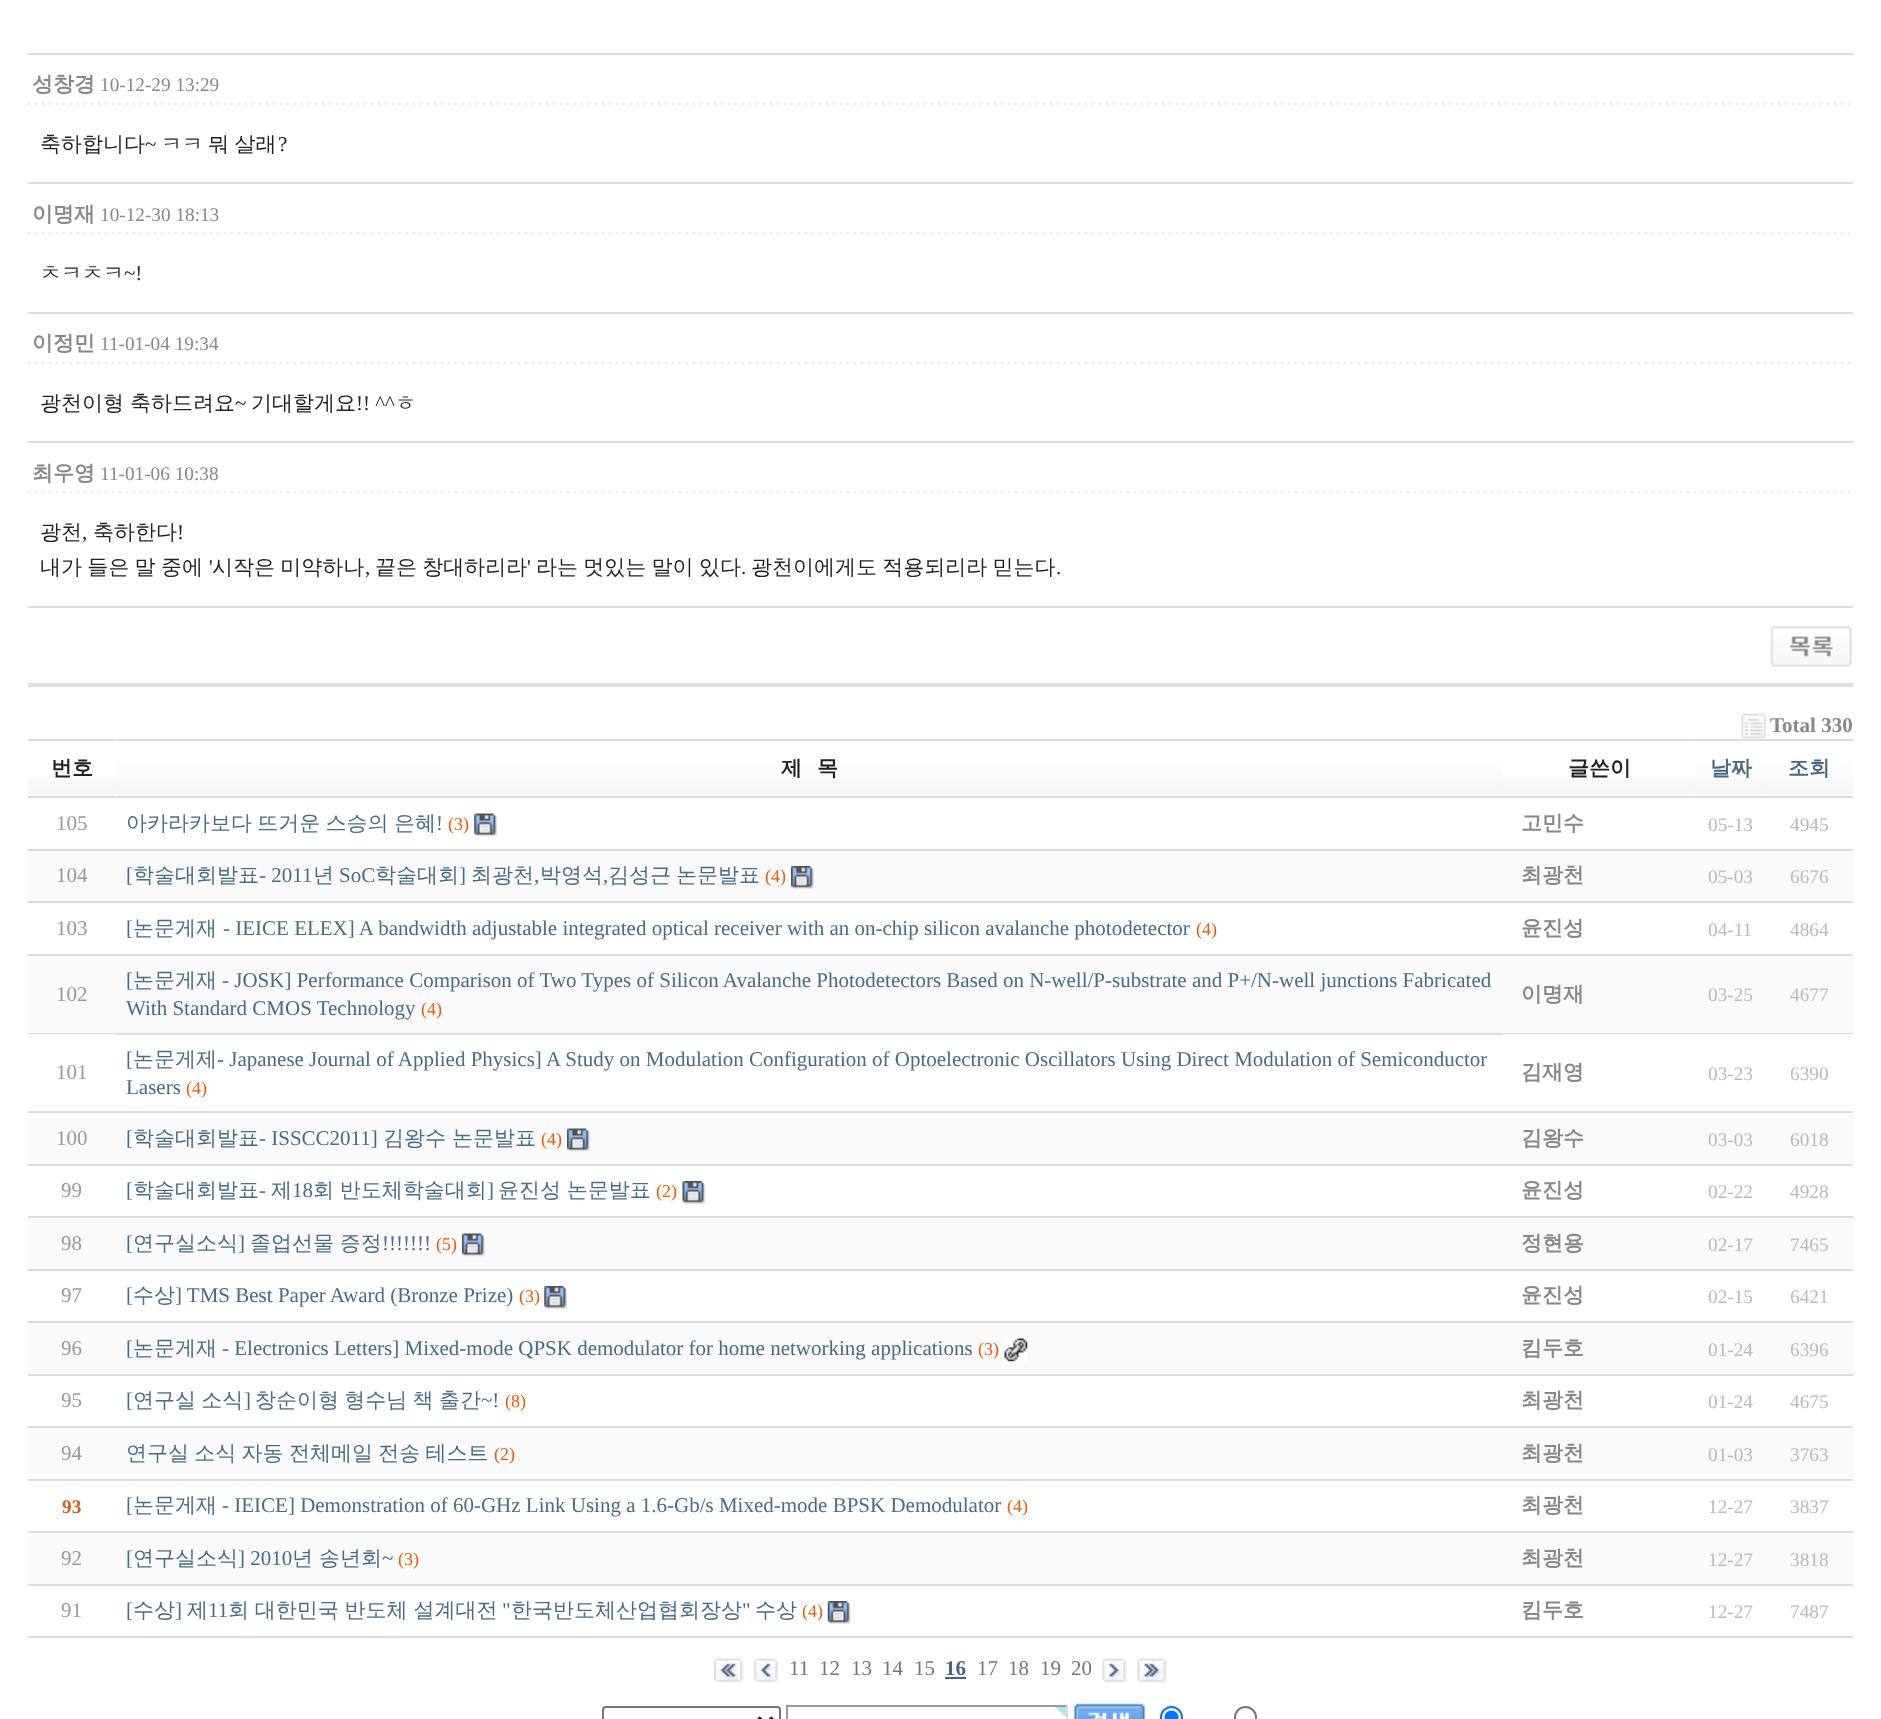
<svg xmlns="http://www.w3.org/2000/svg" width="1881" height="1719">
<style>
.a{font:bold 21px WenQuanYi Zen Hei;fill:#888}
.b{font:19.25px Liberation Serif;fill:#888}
.c{font:500 21px WenQuanYi Zen Hei;fill:#222}
.d{font:21px Liberation Serif;fill:#222}
.e{font:bold 21px Liberation Serif;fill:#888}
.f{font:bold 21px WenQuanYi Zen Hei;fill:#222}
.g{font:bold 21px WenQuanYi Zen Hei;fill:#466c8a}
.h{font:21px Liberation Serif;fill:#999}
.i{font:500 21px WenQuanYi Zen Hei;fill:#466c8a}
.j{font:21px Liberation Serif;fill:#466c8a}
.k{font:18px Liberation Serif;fill:#ee5a00}
.l{font:19.25px Liberation Serif;fill:#bababa}
.m{font:bold 19.25px Liberation Serif;fill:#e15916}
.n{font:21px Liberation Serif;fill:#777}
.o{font:bold 21px Liberation Serif;fill:#4d6185}
</style>
<rect width="100%" height="100%" fill="#fff"/>
<path fill="#ddd" d="M28 53h1825v2H28z"/>
<image href="1.png" x="28" y="102" width="1822" height="3"/>
<path fill="#ddd" d="M28 182h1825v2H28z"/>
<image href="2.png" x="28" y="232" width="1822" height="3"/>
<path fill="#ddd" d="M28 312h1825v2H28z"/>
<image href="1.png" x="28" y="361" width="1822" height="3"/>
<path fill="#ddd" d="M28 441h1825v2H28z"/>
<image href="2.png" x="28" y="491" width="1822" height="3"/>
<path fill="#ddd" d="M28 606h1825v2H28z"/>
<image href="3.png" x="1770" y="625" width="82" height="42"/>
<path fill="#dedede" d="M28 683h1825v4H28z"/>
<image href="4.png" x="1741" y="713" width="25" height="26"/>
<image href="5.png" x="28" y="776" width="88" height="20"/>
<path fill="#ddd" d="M28 739h88v2H28z"/>
<path fill="#ddd" d="M28 796h88v2H28z"/>
<image href="6.png" x="115" y="740" width="1388" height="58"/>
<path fill="#ddd" d="M116 739h1580v2H116z"/>
<path fill="#ddd" d="M116 796h1580v2H116z"/>
<image href="7.png" x="1503" y="776" width="193" height="20"/>
<image href="8.png" x="1695" y="740" width="71" height="58"/>
<path fill="#ddd" d="M1696 739h70v2H1696z"/>
<path fill="#ddd" d="M1696 796h70v2H1696z"/>
<image href="9.png" x="1765" y="740" width="88" height="58"/>
<path fill="#ddd" d="M1766 739h87v2H1766z"/>
<path fill="#ddd" d="M1766 796h87v2H1766z"/>
<path fill="#ddd" d="M28 849h88v2H28z"/>
<image href="10.png" x="474" y="813" width="23" height="24"/>
<path fill="#ddd" d="M116 849h1737v2H116z"/>
<path fill="#fafafa" d="M28 851h1825v50H28z"/>
<path fill="#ddd" d="M28 901h88v2H28z"/>
<image href="11.png" x="791" y="866" width="23" height="23"/>
<path fill="#ddd" d="M116 901h1737v2H116z"/>
<path fill="#ddd" d="M28 954h88v2H28z"/>
<path fill="#ddd" d="M116 954h1737v2H116z"/>
<path fill="#fafafa" d="M28 956h1825v77H28z"/>
<path fill="#ddd" d="M28 1033h88v1H28z"/>
<path fill="#ddd" d="M116 1033h1387v2H116z"/>
<path fill="#ddd" d="M1503 1033h350v1H1503z"/>
<path fill="#ddd" d="M28 1111h88v2H28z"/>
<path fill="#ddd" d="M116 1111h1737v2H116z"/>
<path fill="#fafafa" d="M28 1113h1825v51H28z"/>
<path fill="#ddd" d="M28 1164h88v2H28z"/>
<image href="12.png" x="567" y="1128" width="23" height="24"/>
<path fill="#ddd" d="M116 1164h1737v2H116z"/>
<path fill="#ddd" d="M28 1216h88v2H28z"/>
<path fill="#ddd" d="M116 1216h1387v2H116z"/>
<image href="13.png" x="682" y="1181" width="24" height="23"/>
<path fill="#ddd" d="M1503 1216h350v2H1503z"/>
<path fill="#fafafa" d="M28 1218h1825v51H28z"/>
<path fill="#ddd" d="M28 1269h88v2H28z"/>
<path fill="#ddd" d="M116 1269h1387v2H116z"/>
<image href="14.png" x="462" y="1233" width="23" height="24"/>
<path fill="#ddd" d="M1503 1269h350v2H1503z"/>
<path fill="#ddd" d="M28 1321h88v2H28z"/>
<path fill="#ddd" d="M116 1321h1387v2H116z"/>
<image href="15.png" x="544" y="1286" width="23" height="23"/>
<path fill="#ddd" d="M1503 1321h350v2H1503z"/>
<path fill="#fafafa" d="M28 1323h1825v51H28z"/>
<path fill="#ddd" d="M28 1374h88v2H28z"/>
<path fill="#ddd" d="M116 1374h1387v2H116z"/>
<image href="16.png" x="1004" y="1338" width="24" height="24"/>
<path fill="#ddd" d="M1503 1374h350v2H1503z"/>
<path fill="#ddd" d="M28 1426h88v2H28z"/>
<path fill="#ddd" d="M116 1426h1387v2H116z"/>
<path fill="#ddd" d="M1503 1426h350v2H1503z"/>
<path fill="#fafafa" d="M28 1428h1825v51H28z"/>
<path fill="#ddd" d="M28 1479h88v2H28z"/>
<path fill="#ddd" d="M116 1479h1387v2H116z"/>
<path fill="#ddd" d="M1503 1479h350v2H1503z"/>
<path fill="#ddd" d="M28 1531h88v2H28z"/>
<path fill="#ddd" d="M116 1531h1387v2H116z"/>
<path fill="#ddd" d="M1503 1531h350v2H1503z"/>
<path fill="#fafafa" d="M28 1533h1825v51H28z"/>
<path fill="#ddd" d="M28 1584h88v2H28z"/>
<path fill="#ddd" d="M116 1584h1387v2H116z"/>
<path fill="#ddd" d="M1503 1584h350v2H1503z"/>
<path fill="#ddd" d="M28 1636h88v2H28z"/>
<path fill="#ddd" d="M116 1636h1387v2H116z"/>
<image href="17.png" x="827" y="1601" width="24" height="23"/>
<path fill="#ddd" d="M1503 1636h350v2H1503z"/>
<image href="18.png" x="714" y="1658" width="30" height="25"/>
<image href="19.png" x="754" y="1658" width="25" height="25"/>
<path fill="#4d6185" d="M945 1677h21v2H945z"/>
<image href="20.png" x="1102" y="1658" width="25" height="25"/>
<image href="21.png" x="1137" y="1658" width="30" height="25"/>
<rect fill="none" stroke="#767676" stroke-width="2" x="603" y="1707" width="177" height="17" rx="3"/>
<path fill="none" stroke="#222" stroke-width="3.5" d="M758.5 1717.5l7 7l7-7"/>
<image href="22.png" x="1055" y="1707" width="11" height="10"/>
<path fill="#9a9a9a" d="M786 1705h282v2H786z"/>
<path fill="#d8d8d8" d="M1066 1705h2v14H1066z"/>
<path fill="#9a9a9a" d="M786 1705h2v14H786z"/>
<image href="23.png" x="1073" y="1702" width="73" height="17"/>
<circle fill="none" stroke="#0075ff" stroke-width="2" cx="1171.5" cy="1717.5" r="10.5"/>
<circle fill="#0075ff" cx="1171.5" cy="1717.5" r="7"/>
<circle fill="none" stroke="#767676" stroke-width="2" cx="1245.5" cy="1717.5" r="10.5"/>
<text class="a" x="32" y="91">성창경</text>
<text class="b" x="100" y="91">10-12-29 13:29</text>
<text class="c" x="40" y="151">축하합니다</text>
<text class="d" x="145" y="151">~</text>
<text class="c" x="161" y="151" word-spacing="-1">ㅋㅋ 뭐 살래</text>
<text class="d" x="278" y="151">?</text>
<text class="a" x="32" y="221">이명재</text>
<text class="b" x="100" y="221">10-12-30 18:13</text>
<text class="c" x="40" y="280">ㅊㅋㅊㅋ</text>
<text class="d" x="124" y="280">~!</text>
<text class="a" x="32" y="350">이정민</text>
<text class="b" x="100" y="350">11-01-04 19:34</text>
<text class="c" x="40" y="410">광천이형</text>
<text class="c" x="130" y="410">축하드려요</text>
<text class="d" x="235" y="410">~</text>
<text class="c" x="251" y="410">기대할게요</text>
<text class="d" x="356" y="410">!! ^^</text>
<text class="c" x="395" y="410">ㅎ</text>
<text class="a" x="32" y="480">최우영</text>
<text class="b" x="100" y="480">11-01-06 10:38</text>
<text class="c" x="40" y="539">광천</text>
<text class="d" x="82" y="539">,</text>
<text class="c" x="93" y="539">축하한다</text>
<text class="d" x="177" y="539">!</text>
<text class="c" x="40" y="574" word-spacing="-1">내가 들은 말 중에</text>
<text class="d" x="209" y="574">'</text>
<text class="c" x="212" y="574" word-spacing="-1">시작은 미약하나</text>
<text class="c" x="375" y="574" word-spacing="-1">끝은 창대하리라</text>
<text class="d" x="527" y="574">'</text>
<text class="c" x="536" y="574" word-spacing="-1">라는 멋있는 말이 있다</text>
<text class="c" x="751" y="574" word-spacing="-1">광천이에게도 적용되리라 믿는다</text>
<text class="d" x="365" y="574">,</text>
<text class="d" x="741" y="574">.</text>
<text class="d" x="1056" y="574">.</text>
<text class="e" x="1770" y="732">Total 330</text>
<text class="f" x="51" y="775">번호</text>
<text class="f" x="781" y="775">제</text>
<text class="f" x="817" y="775">목</text>
<text class="f" x="1568" y="775">글쓴이</text>
<text class="g" x="1710" y="775">날짜</text>
<text class="g" x="1788" y="775">조회</text>
<text class="h" x="56" y="830">105</text>
<text class="i" x="126" y="830" word-spacing="-1">아카라카보다 뜨거운 스승의 은혜</text>
<text class="j" x="436" y="830">!</text>
<text class="k" x="448" y="830">(3)</text>
<text class="a" x="1521" y="830">고민수</text>
<text class="l" x="1708" y="831">05-13</text>
<text class="l" x="1790" y="831">4945</text>
<text class="h" x="56" y="882">104</text>
<text class="j" x="126" y="882">[</text>
<text class="i" x="133" y="882">학술대회발표</text>
<text class="j" x="259" y="882">- 2011</text>
<text class="i" x="313" y="882">년</text>
<text class="j" x="339" y="882">SoC</text>
<text class="i" x="375" y="882">학술대회</text>
<text class="j" x="459" y="882">]</text>
<text class="i" x="471" y="882">최광천</text>
<text class="j" x="534" y="882">,</text>
<text class="i" x="540" y="882">박영석</text>
<text class="j" x="603" y="882">,</text>
<text class="i" x="608" y="882">김성근</text>
<text class="i" x="676" y="882">논문발표</text>
<text class="k" x="765" y="882">(4)</text>
<text class="a" x="1521" y="882">최광천</text>
<text class="l" x="1708" y="883">05-03</text>
<text class="l" x="1790" y="883">6676</text>
<text class="h" x="56" y="935">103</text>
<text class="j" x="126" y="935">[</text>
<text class="i" x="133" y="935">논문게재</text>
<text class="j" x="223" y="935">- IEICE ELEX] A bandwidth adjustable integrated optical receiver with an on-chip silicon avalanche photodetector</text>
<text class="k" x="1196" y="935">(4)</text>
<text class="a" x="1521" y="935">윤진성</text>
<text class="l" x="1708" y="936">04-11</text>
<text class="l" x="1790" y="936">4864</text>
<text class="h" x="56" y="1001">102</text>
<text class="j" x="126" y="987">[</text>
<text class="i" x="133" y="987">논문게재</text>
<text class="j" x="222" y="987">- JOSK] Performance Comparison of Two Types of Silicon Avalanche Photodetectors Based on N-well/P-substrate and P+/N-well junctions Fabricated</text>
<text class="j" x="126" y="1015">With Standard CMOS Technology</text>
<text class="k" x="421" y="1015">(4)</text>
<text class="a" x="1521" y="1001">이명재</text>
<text class="l" x="1708" y="1001">03-25</text>
<text class="l" x="1790" y="1001">4677</text>
<text class="h" x="56" y="1079">101</text>
<text class="j" x="126" y="1066">[</text>
<text class="i" x="133" y="1066">논문게제</text>
<text class="j" x="217" y="1066">- Japanese Journal of Applied Physics] A Study on Modulation Configuration of Optoelectronic Oscillators Using Direct Modulation of Semiconductor</text>
<text class="j" x="126" y="1094">Lasers</text>
<text class="k" x="186" y="1094">(4)</text>
<text class="a" x="1521" y="1079">김재영</text>
<text class="l" x="1708" y="1080">03-23</text>
<text class="l" x="1790" y="1080">6390</text>
<text class="h" x="56" y="1145">100</text>
<text class="j" x="126" y="1145">[</text>
<text class="i" x="133" y="1145">학술대회발표</text>
<text class="j" x="259" y="1145">- ISSCC2011]</text>
<text class="i" x="383" y="1145">김왕수</text>
<text class="i" x="452" y="1145">논문발표</text>
<text class="k" x="541" y="1145">(4)</text>
<text class="a" x="1521" y="1145">김왕수</text>
<text class="l" x="1708" y="1146">03-03</text>
<text class="l" x="1790" y="1146">6018</text>
<text class="h" x="61" y="1197">99</text>
<text class="j" x="126" y="1197">[</text>
<text class="i" x="133" y="1197">학술대회발표</text>
<text class="j" x="259" y="1197">-</text>
<text class="i" x="271" y="1197">제</text>
<text class="j" x="292" y="1197">18</text>
<text class="i" x="313" y="1197" word-spacing="-0.5">회 반도체학술대회</text>
<text class="j" x="487" y="1197">]</text>
<text class="i" x="498" y="1197" word-spacing="-0.5">윤진성 논문발표</text>
<text class="k" x="656" y="1197">(2)</text>
<text class="a" x="1521" y="1197">윤진성</text>
<text class="l" x="1708" y="1198">02-22</text>
<text class="l" x="1790" y="1198">4928</text>
<text class="h" x="61" y="1250">98</text>
<text class="j" x="126" y="1250">[</text>
<text class="i" x="133" y="1250">연구실소식</text>
<text class="j" x="238" y="1250">]</text>
<text class="i" x="250" y="1250" word-spacing="-0.5">졸업선물 증정</text>
<text class="j" x="382" y="1250">!!!!!!!</text>
<text class="k" x="436" y="1250">(5)</text>
<text class="a" x="1521" y="1250">정현용</text>
<text class="l" x="1708" y="1251">02-17</text>
<text class="l" x="1790" y="1251">7465</text>
<text class="h" x="61" y="1302">97</text>
<text class="j" x="126" y="1302">[</text>
<text class="i" x="133" y="1302">수상</text>
<text class="j" x="175" y="1302">] TMS Best Paper Award (Bronze Prize)</text>
<text class="k" x="519" y="1302">(3)</text>
<text class="a" x="1521" y="1302">윤진성</text>
<text class="l" x="1708" y="1303">02-15</text>
<text class="l" x="1790" y="1303">6421</text>
<text class="h" x="61" y="1355">96</text>
<text class="j" x="126" y="1355">[</text>
<text class="i" x="133" y="1355">논문게재</text>
<text class="j" x="222" y="1355">- Electronics Letters] Mixed-mode QPSK demodulator for home networking applications</text>
<text class="k" x="978" y="1355">(3)</text>
<text class="a" x="1521" y="1355">킴두호</text>
<text class="l" x="1708" y="1356">01-24</text>
<text class="l" x="1790" y="1356">6396</text>
<text class="h" x="61" y="1407">95</text>
<text class="j" x="126" y="1407">[</text>
<text class="i" x="133" y="1407" word-spacing="-1">연구실 소식</text>
<text class="j" x="244" y="1407">]</text>
<text class="i" x="255" y="1407" word-spacing="-1">창순이형 형수님 책 출간</text>
<text class="j" x="481" y="1407">~!</text>
<text class="k" x="505" y="1407">(8)</text>
<text class="a" x="1521" y="1407">최광천</text>
<text class="l" x="1708" y="1408">01-24</text>
<text class="l" x="1790" y="1408">4675</text>
<text class="h" x="61" y="1460">94</text>
<text class="i" x="126" y="1460" word-spacing="-1">연구실 소식 자동 전체메일 전송 테스트</text>
<text class="k" x="494" y="1460">(2)</text>
<text class="a" x="1521" y="1460">최광천</text>
<text class="l" x="1708" y="1461">01-03</text>
<text class="l" x="1790" y="1461">3763</text>
<text class="m" x="62" y="1513">93</text>
<text class="j" x="126" y="1512">[</text>
<text class="i" x="133" y="1512">논문게재</text>
<text class="j" x="222" y="1512">- IEICE] Demonstration of 60-GHz Link Using a 1.6-Gb/s Mixed-mode BPSK Demodulator</text>
<text class="k" x="1007" y="1512">(4)</text>
<text class="a" x="1521" y="1512">최광천</text>
<text class="l" x="1708" y="1513">12-27</text>
<text class="l" x="1790" y="1513">3837</text>
<text class="h" x="61" y="1565">92</text>
<text class="j" x="126" y="1565">[</text>
<text class="i" x="133" y="1565">연구실소식</text>
<text class="j" x="238" y="1565">] 2010</text>
<text class="i" x="292" y="1565">년</text>
<text class="i" x="319" y="1565">송년회</text>
<text class="j" x="382" y="1565">~</text>
<text class="k" x="398" y="1565">(3)</text>
<text class="a" x="1521" y="1565">최광천</text>
<text class="l" x="1708" y="1566">12-27</text>
<text class="l" x="1790" y="1566">3818</text>
<text class="h" x="61" y="1617">91</text>
<text class="j" x="126" y="1617">[</text>
<text class="i" x="133" y="1617">수상</text>
<text class="j" x="175" y="1617">]</text>
<text class="i" x="187" y="1617">제</text>
<text class="j" x="208" y="1617">11</text>
<text class="i" x="228" y="1617" word-spacing="-0.5">회 대한민국 반도체 설계대전</text>
<text class="j" x="502" y="1617">"</text>
<text class="i" x="511" y="1617">한국반도체산업협회장상</text>
<text class="j" x="742" y="1617">"</text>
<text class="i" x="755" y="1617">수상</text>
<text class="k" x="802" y="1617">(4)</text>
<text class="a" x="1521" y="1617">킴두호</text>
<text class="l" x="1708" y="1618">12-27</text>
<text class="l" x="1790" y="1618">7487</text>
<text class="n" x="789" y="1675">11</text>
<text class="n" x="819" y="1675">12</text>
<text class="n" x="851" y="1675">13</text>
<text class="n" x="882" y="1675">14</text>
<text class="n" x="914" y="1675">15</text>
<text class="o" x="945" y="1675">16</text>
<text class="n" x="977" y="1675">17</text>
<text class="n" x="1008" y="1675">18</text>
<text class="n" x="1040" y="1675">19</text>
<text class="n" x="1071" y="1675">20</text>
</svg>
